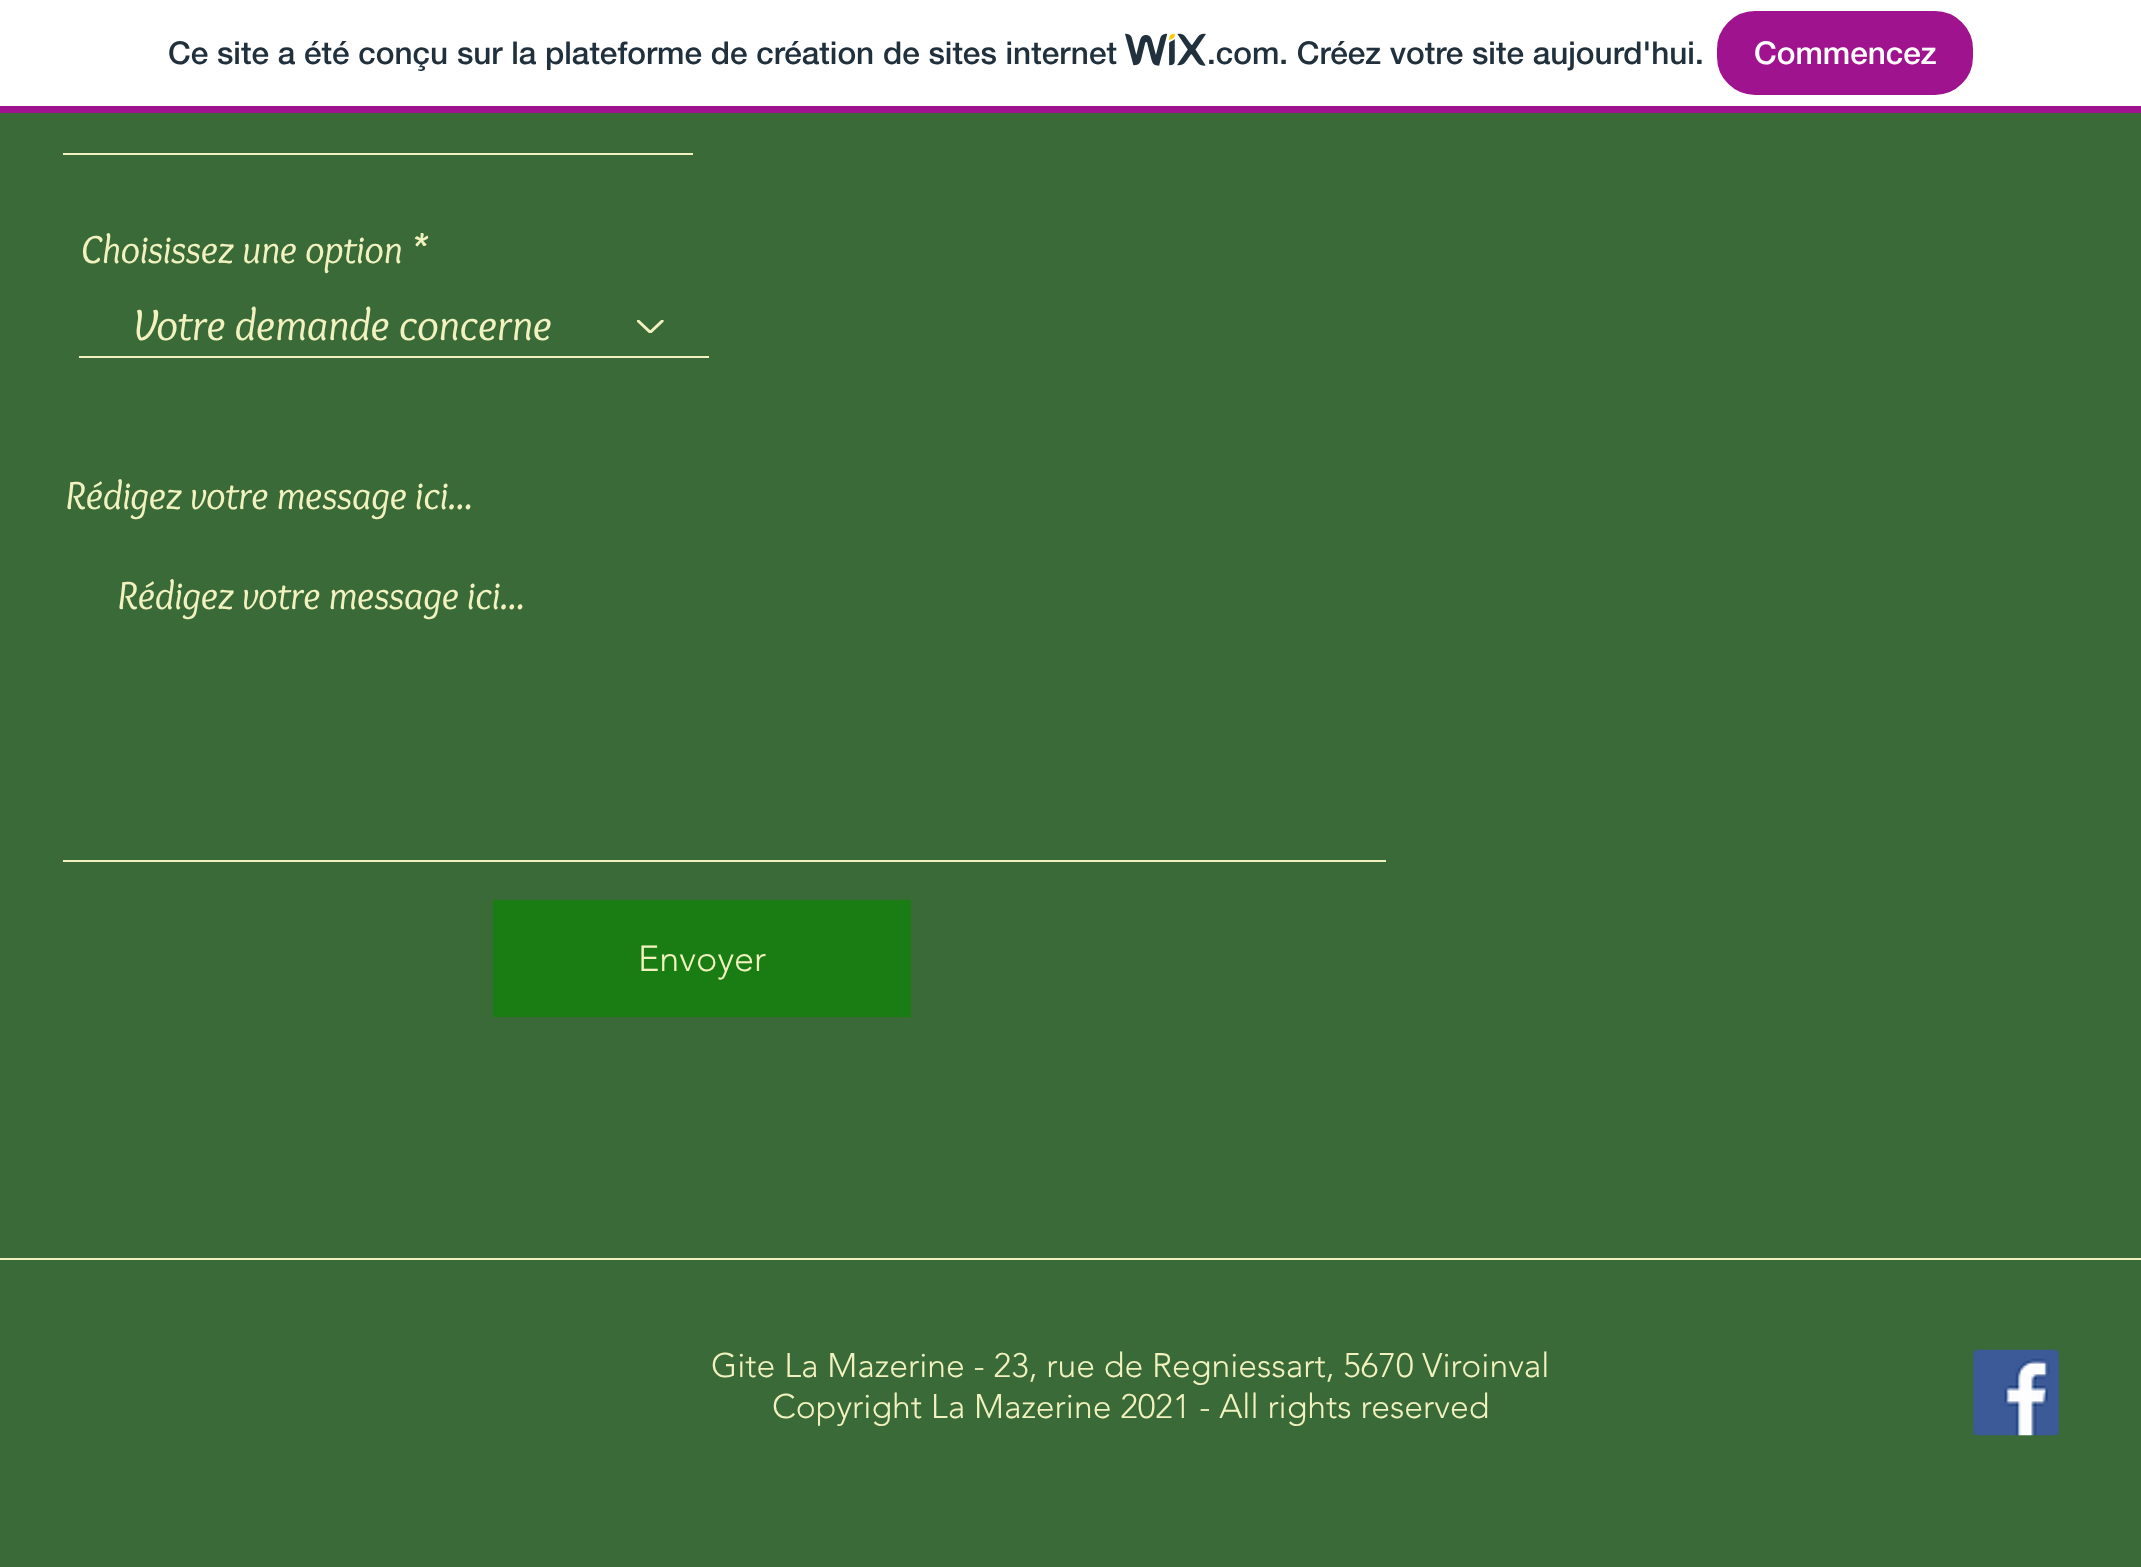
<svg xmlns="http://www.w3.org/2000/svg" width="2141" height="1567">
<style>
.a{font:500 31.5px 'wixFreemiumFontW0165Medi';fill:#20303c}
.b{font:500 31.5px 'wixFreemiumFontW0165Medi';fill:#fff}
.c{font:italic 40.5px Overlock;fill:#f1f2bf}
.d{font:italic 45px Overlock;fill:#f1f2bf}
.e{font:300 36px 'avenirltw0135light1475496';fill:#f1f2bf}
.f{font:300 33.75px 'avenirltw0135light1475496';fill:#f1f2bf}
</style>
<rect width="100%" height="100%" fill="#3a6a37"/>
<path fill="#fff" d="M0 0h2141v106H0z"/>
<path fill="#a0138e" d="M0 106h2141v7H0z"/>
<image href="1.png" x="1125" y="33" width="81" height="33"/>
<rect fill="#a0138e" stroke="#a0138e" stroke-width="2" x="1718" y="12" width="254" height="82" rx="37"/>
<path fill="#f1f2bf" d="M63 153h630v2H63z"/>
<path fill="#f1f2bf" d="M79 356h630v2H79z"/>
<image href="2.png" x="637" y="320" width="27" height="13"/>
<path fill="#f1f2bf" d="M63 860h1323v2H63z"/>
<path fill="#197d14" d="M493 900h418v117H493z"/>
<path fill="#f1f2bf" d="M0 1258h2141v2H0z"/>
<image href="3.png" x="1973" y="1349" width="86" height="87"/>
<text class="a" x="168" y="64">Ce site a été conçu sur la plateforme de création de sites internet</text>
<text class="a" x="1207" y="64">.com. Créez votre site aujourd'hui.</text>
<text class="b" x="1754" y="64">Commencez</text>
<text class="c" x="81" y="263">Choisissez une option *</text>
<text class="d" x="133" y="340">Votre demande concerne</text>
<text class="c" x="65" y="509">Rédigez votre message ici...</text>
<text class="c" x="117" y="609">Rédigez votre message ici...</text>
<text class="e" x="638" y="971">Envoyer</text>
<text class="f" x="711" y="1377">Gite La Mazerine - 23, rue de Regniessart, 5670 Viroinval</text>
<text class="f" x="772" y="1418">Copyright La Mazerine 2021 - All rights reserved</text>
</svg>
